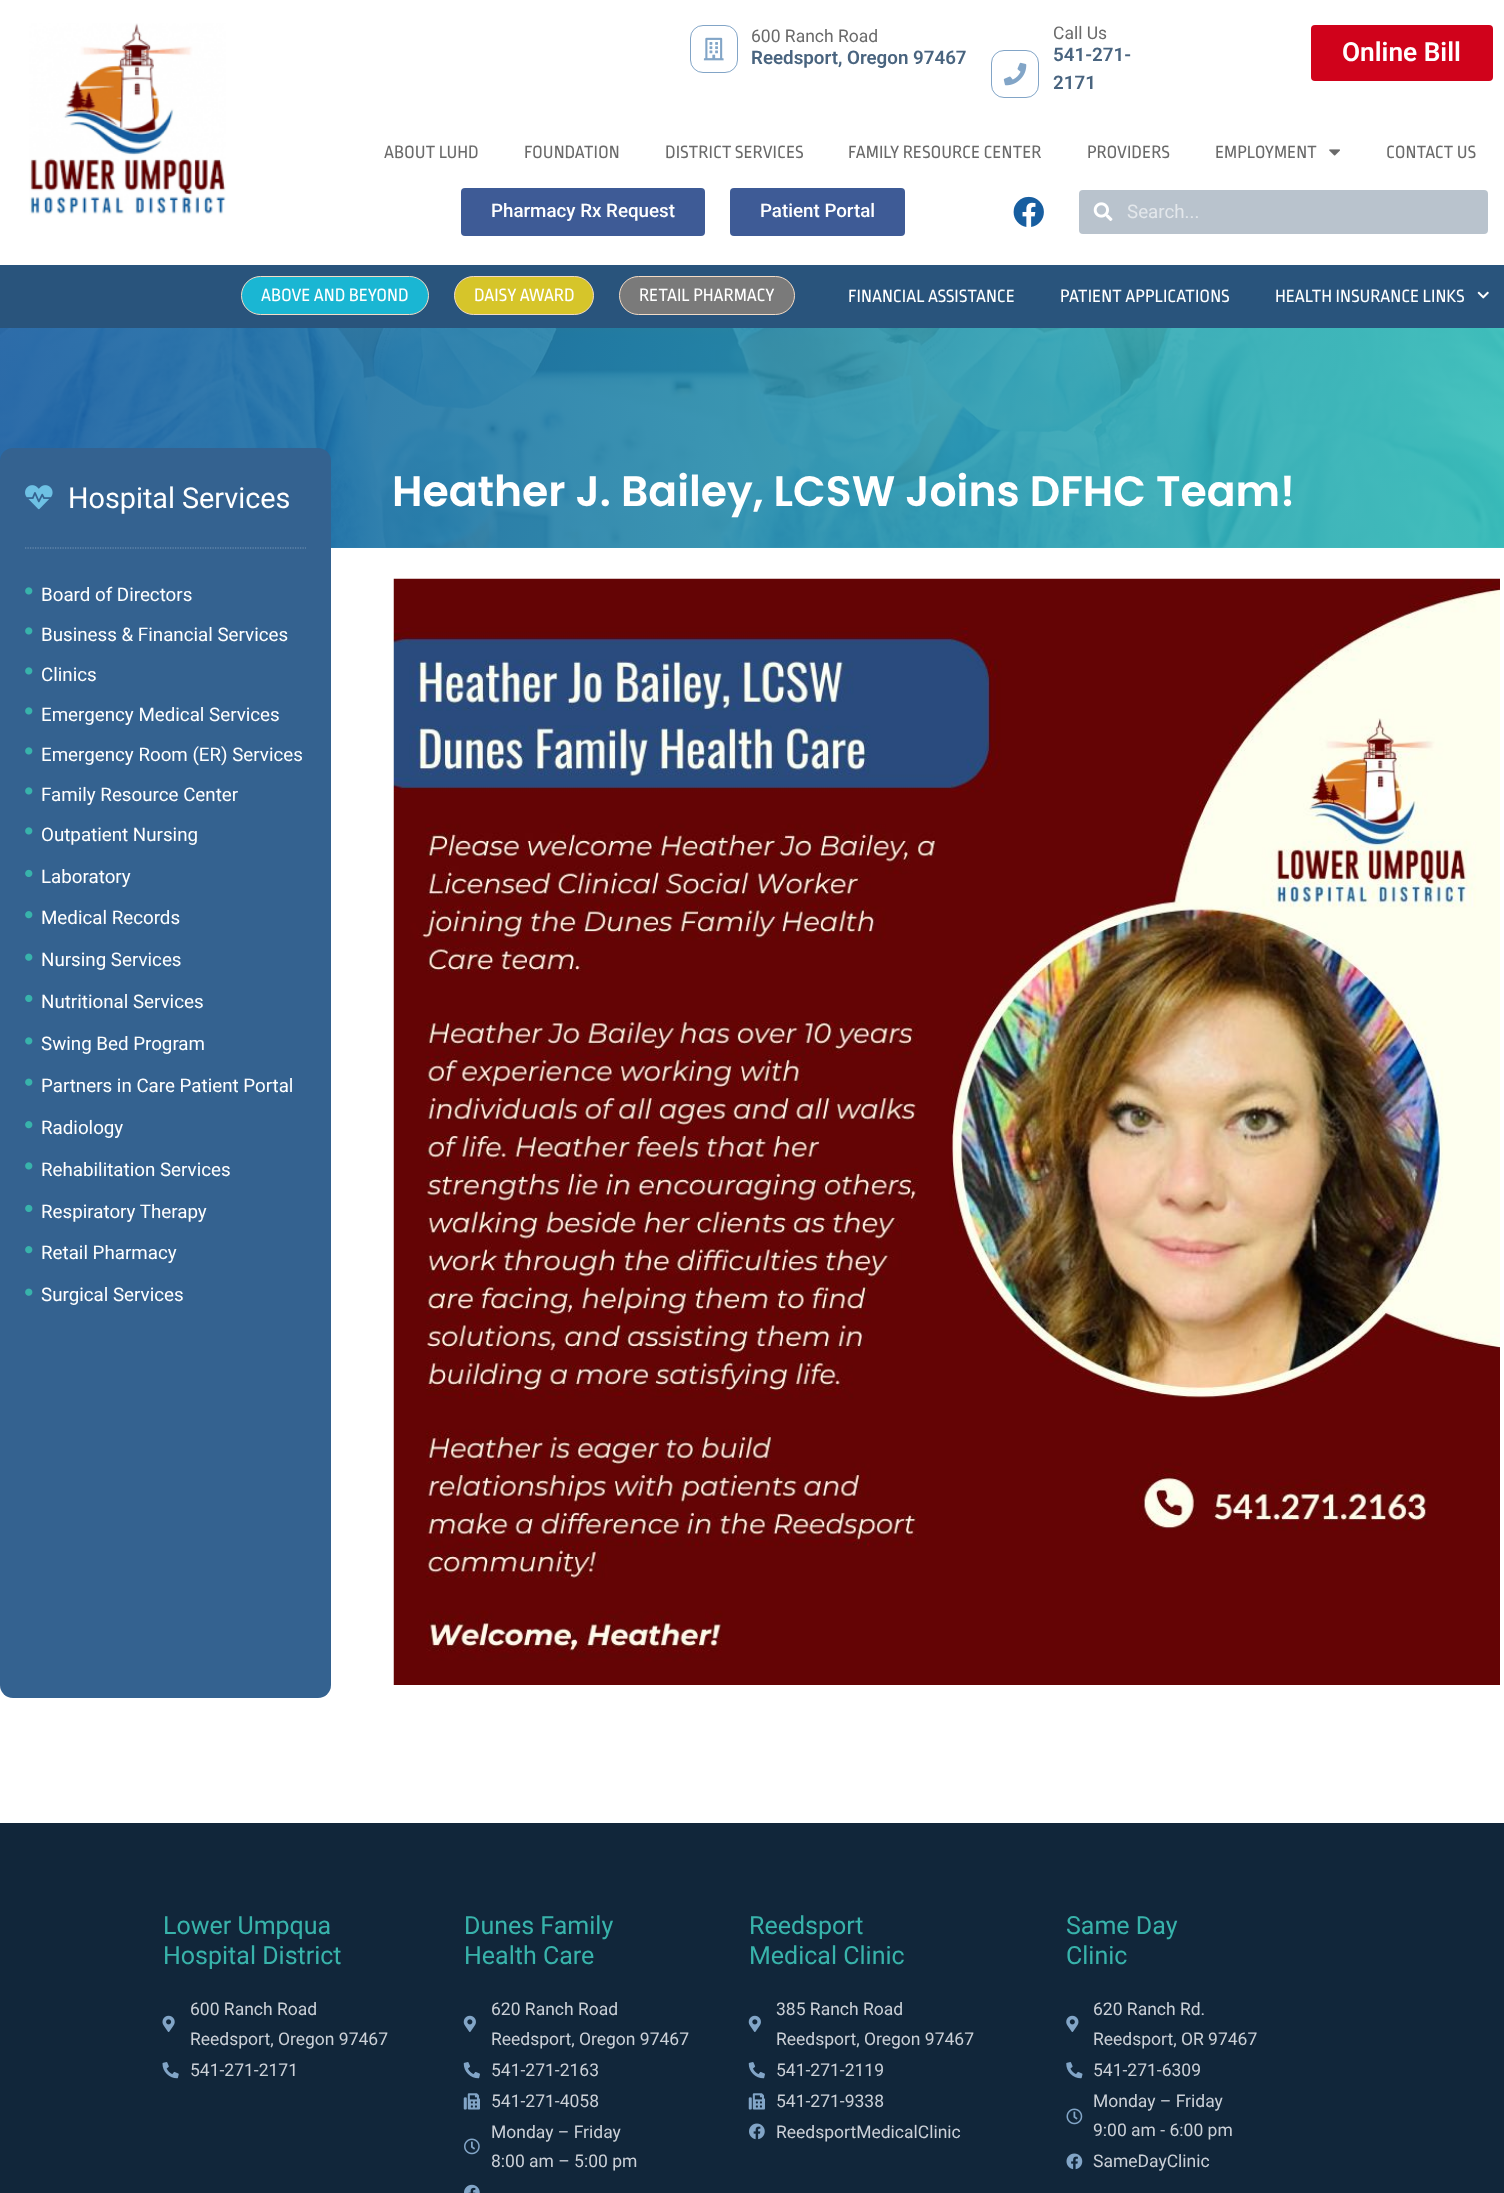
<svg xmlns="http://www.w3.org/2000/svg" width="1504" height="2193">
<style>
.a{font:17.5px Roboto;fill:#6a6a6a}
.b{font:600 18.75px Roboto;fill:#49647f}
.c{font:600 26.25px Roboto;fill:#fff}
.d{font:18.75px Ropa Sans;fill:#6a6a6a}
.e{font:500 18.75px Roboto;fill:#fff}
.f{font:18.75px Roboto;fill:#e3e7eb}
.g{font:18.75px Ropa Sans;fill:#fff}
.h{font:28.75px Roboto;fill:#fff}
.i{font:18.75px Roboto;fill:#fff}
.j{font:600 42.5px Poppins;fill:#fff}
.k{font:25px Roboto;fill:#38b3ab}
.l{font:17.5px Roboto;fill:#cbd0d7}
</style>
<defs>
<linearGradient id="g1" gradientUnits="userSpaceOnUse" x1="0" y1="438" x2="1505" y2="437"><stop offset="0" stop-color="#195ea1" stop-opacity="0.9"/><stop offset="1" stop-color="#37bfba" stop-opacity="0.9"/></linearGradient>
</defs>
<rect width="100%" height="100%" fill="#fff"/>
<image href="1.png" x="29" y="23" width="197" height="192"/>
<rect fill="none" stroke="#82a5c7" x="690.5" y="25.5" width="47" height="47" rx="12.5"/>
<image href="2.png" x="703" y="37" width="21" height="24"/>
<rect fill="none" stroke="#82a5c7" x="991.5" y="50.5" width="47" height="47" rx="12.5"/>
<image href="3.png" x="1003" y="62" width="24" height="24"/>
<rect fill="#d0021b" x="1311" y="25" width="182" height="56" rx="4"/>
<image href="4.png" x="1329" y="149" width="11" height="7"/>
<rect fill="#3e5b96" x="461" y="188" width="244" height="48" rx="4"/>
<rect fill="#3e5b96" x="730" y="188" width="175" height="48" rx="4"/>
<image href="5.png" x="1013" y="196" width="31" height="31"/>
<rect fill="#b9c3cd" x="1079" y="190" width="409" height="44" rx="4"/>
<image href="6.png" x="1093" y="202" width="20" height="19"/>
<path fill="#29547c" d="M0 265h1504v63H0z"/>
<rect fill="#1ab6d3" stroke="#f4dcc6" x="241.5" y="276.5" width="187" height="38" rx="19"/>
<rect fill="#d6c52a" stroke="#f4dcc6" x="454.5" y="276.5" width="139" height="38" rx="19"/>
<rect fill="#7a7a7a" stroke="#f4dcc6" x="619.5" y="276.5" width="175" height="38" rx="19"/>
<image href="7.png" x="1477" y="291" width="12" height="8"/>
<image href="14.png" x="0" y="328" width="1504" height="220"/>
<path fill="url(#g1)" d="M0 328h1504v220H0z"/>
<rect fill="#346290" y="448" width="331" height="1250" rx="13"/>
<image href="8.png" x="25" y="485" width="28" height="25"/>
<path fill="none" stroke="#7796b5" stroke-width="1.2" stroke-dasharray="1.25 1.25" d="M25 548h281"/>
<image href="9.png" x="25" y="587" width="8" height="8"/>
<image href="9.png" x="25" y="627" width="8" height="8"/>
<image href="9.png" x="25" y="667" width="8" height="8"/>
<image href="9.png" x="25" y="707" width="8" height="8"/>
<image href="9.png" x="25" y="747" width="8" height="8"/>
<image href="9.png" x="25" y="787" width="8" height="8"/>
<image href="9.png" x="25" y="827" width="8" height="8"/>
<image href="10.png" x="25" y="869" width="8" height="8"/>
<image href="11.png" x="25" y="911" width="8" height="8"/>
<image href="12.png" x="25" y="953" width="8" height="8"/>
<image href="10.png" x="25" y="994" width="8" height="8"/>
<image href="9.png" x="25" y="1037" width="8" height="8"/>
<image href="12.png" x="25" y="1078" width="8" height="8"/>
<image href="11.png" x="25" y="1121" width="8" height="8"/>
<image href="9.png" x="25" y="1162" width="8" height="8"/>
<image href="10.png" x="25" y="1204" width="8" height="8"/>
<image href="11.png" x="25" y="1246" width="8" height="8"/>
<image href="12.png" x="25" y="1288" width="8" height="8"/>
<image href="13.png" x="393" y="578" width="1107" height="1107"/>
<path fill="#11263a" d="M0 1823h1504v370H0z"/>
<image href="15.png" x="162" y="2015" width="13" height="17"/>
<image href="16.png" x="162" y="2062" width="17" height="17"/>
<image href="17.png" x="463" y="2015" width="13" height="17"/>
<image href="18.png" x="463" y="2062" width="17" height="17"/>
<image href="19.png" x="463" y="2093" width="17" height="17"/>
<image href="20.png" x="464" y="2138" width="16" height="17"/>
<image href="21.png" x="464" y="2184" width="16" height="9"/>
<image href="17.png" x="748" y="2015" width="13" height="17"/>
<image href="18.png" x="748" y="2062" width="17" height="17"/>
<image href="19.png" x="748" y="2093" width="17" height="17"/>
<image href="22.png" x="749" y="2123" width="16" height="17"/>
<image href="23.png" x="1066" y="2015" width="13" height="17"/>
<image href="24.png" x="1066" y="2062" width="17" height="17"/>
<image href="25.png" x="1066" y="2108" width="17" height="17"/>
<image href="26.png" x="1066" y="2153" width="17" height="17"/>
<text class="a" x="751" y="42">600 Ranch Road</text>
<text class="b" x="751" y="64">Reedsport, Oregon 97467</text>
<text class="a" x="1053" y="39">Call Us</text>
<text class="b" x="1053" y="61">541-271-</text>
<text class="b" x="1053" y="89">2171</text>
<text class="c" x="1342" y="61">Online Bill</text>
<text class="d" x="384" y="158">ABOUT LUHD</text>
<text class="d" x="524" y="158">FOUNDATION</text>
<text class="d" x="665" y="158">DISTRICT SERVICES</text>
<text class="d" x="848" y="158">FAMILY RESOURCE CENTER</text>
<text class="d" x="1087" y="158">PROVIDERS</text>
<text class="d" x="1215" y="158">EMPLOYMENT</text>
<text class="d" x="1386" y="158">CONTACT US</text>
<text class="e" x="491" y="217">Pharmacy Rx Request</text>
<text class="e" x="760" y="217">Patient Portal</text>
<text class="f" x="1127" y="218">Search...</text>
<text class="g" x="261" y="301">ABOVE AND BEYOND</text>
<text class="g" x="474" y="301">DAISY AWARD</text>
<text class="g" x="639" y="301">RETAIL PHARMACY</text>
<text class="g" x="848" y="302">FINANCIAL ASSISTANCE</text>
<text class="g" x="1060" y="302">PATIENT APPLICATIONS</text>
<text class="g" x="1275" y="302">HEALTH INSURANCE LINKS</text>
<text class="h" x="68" y="508">Hospital Services</text>
<text class="i" x="41" y="601">Board of Directors</text>
<text class="i" x="41" y="641">Business &amp; Financial Services</text>
<text class="i" x="41" y="681">Clinics</text>
<text class="i" x="41" y="721">Emergency Medical Services</text>
<text class="i" x="41" y="761">Emergency Room (ER) Services</text>
<text class="i" x="41" y="801">Family Resource Center</text>
<text class="i" x="41" y="841">Outpatient Nursing</text>
<text class="i" x="41" y="883">Laboratory</text>
<text class="i" x="41" y="924">Medical Records</text>
<text class="i" x="41" y="966">Nursing Services</text>
<text class="i" x="41" y="1008">Nutritional Services</text>
<text class="i" x="41" y="1050">Swing Bed Program</text>
<text class="i" x="41" y="1092">Partners in Care Patient Portal</text>
<text class="i" x="41" y="1134">Radiology</text>
<text class="i" x="41" y="1176">Rehabilitation Services</text>
<text class="i" x="41" y="1218">Respiratory Therapy</text>
<text class="i" x="41" y="1259">Retail Pharmacy</text>
<text class="i" x="41" y="1301">Surgical Services</text>
<text class="j" x="392" y="506">Heather J. Bailey, LCSW Joins DFHC Team!</text>
<text class="k" x="163" y="1934">Lower Umpqua</text>
<text class="k" x="163" y="1964">Hospital District</text>
<text class="l" x="190" y="2015">600 Ranch Road</text>
<text class="l" x="190" y="2045">Reedsport, Oregon 97467</text>
<text class="l" x="190" y="2076">541-271-2171</text>
<text class="k" x="464" y="1934">Dunes Family</text>
<text class="k" x="464" y="1964">Health Care</text>
<text class="l" x="491" y="2015">620 Ranch Road</text>
<text class="l" x="491" y="2045">Reedsport, Oregon 97467</text>
<text class="l" x="491" y="2076">541-271-2163</text>
<text class="l" x="491" y="2107">541-271-4058</text>
<text class="l" x="491" y="2138">Monday – Friday</text>
<text class="l" x="491" y="2167">8:00 am – 5:00 pm</text>
<text class="k" x="749" y="1934">Reedsport</text>
<text class="k" x="749" y="1964">Medical Clinic</text>
<text class="l" x="776" y="2015">385 Ranch Road</text>
<text class="l" x="776" y="2045">Reedsport, Oregon 97467</text>
<text class="l" x="776" y="2076">541-271-2119</text>
<text class="l" x="776" y="2107">541-271-9338</text>
<text class="l" x="776" y="2138">ReedsportMedicalClinic</text>
<text class="k" x="1066" y="1934">Same Day</text>
<text class="k" x="1066" y="1964">Clinic</text>
<text class="l" x="1093" y="2015">620 Ranch Rd.</text>
<text class="l" x="1093" y="2045">Reedsport, OR 97467</text>
<text class="l" x="1093" y="2076">541-271-6309</text>
<text class="l" x="1093" y="2107">Monday – Friday</text>
<text class="l" x="1093" y="2136">9:00 am - 6:00 pm</text>
<text class="l" x="1093" y="2167">SameDayClinic</text>
</svg>
